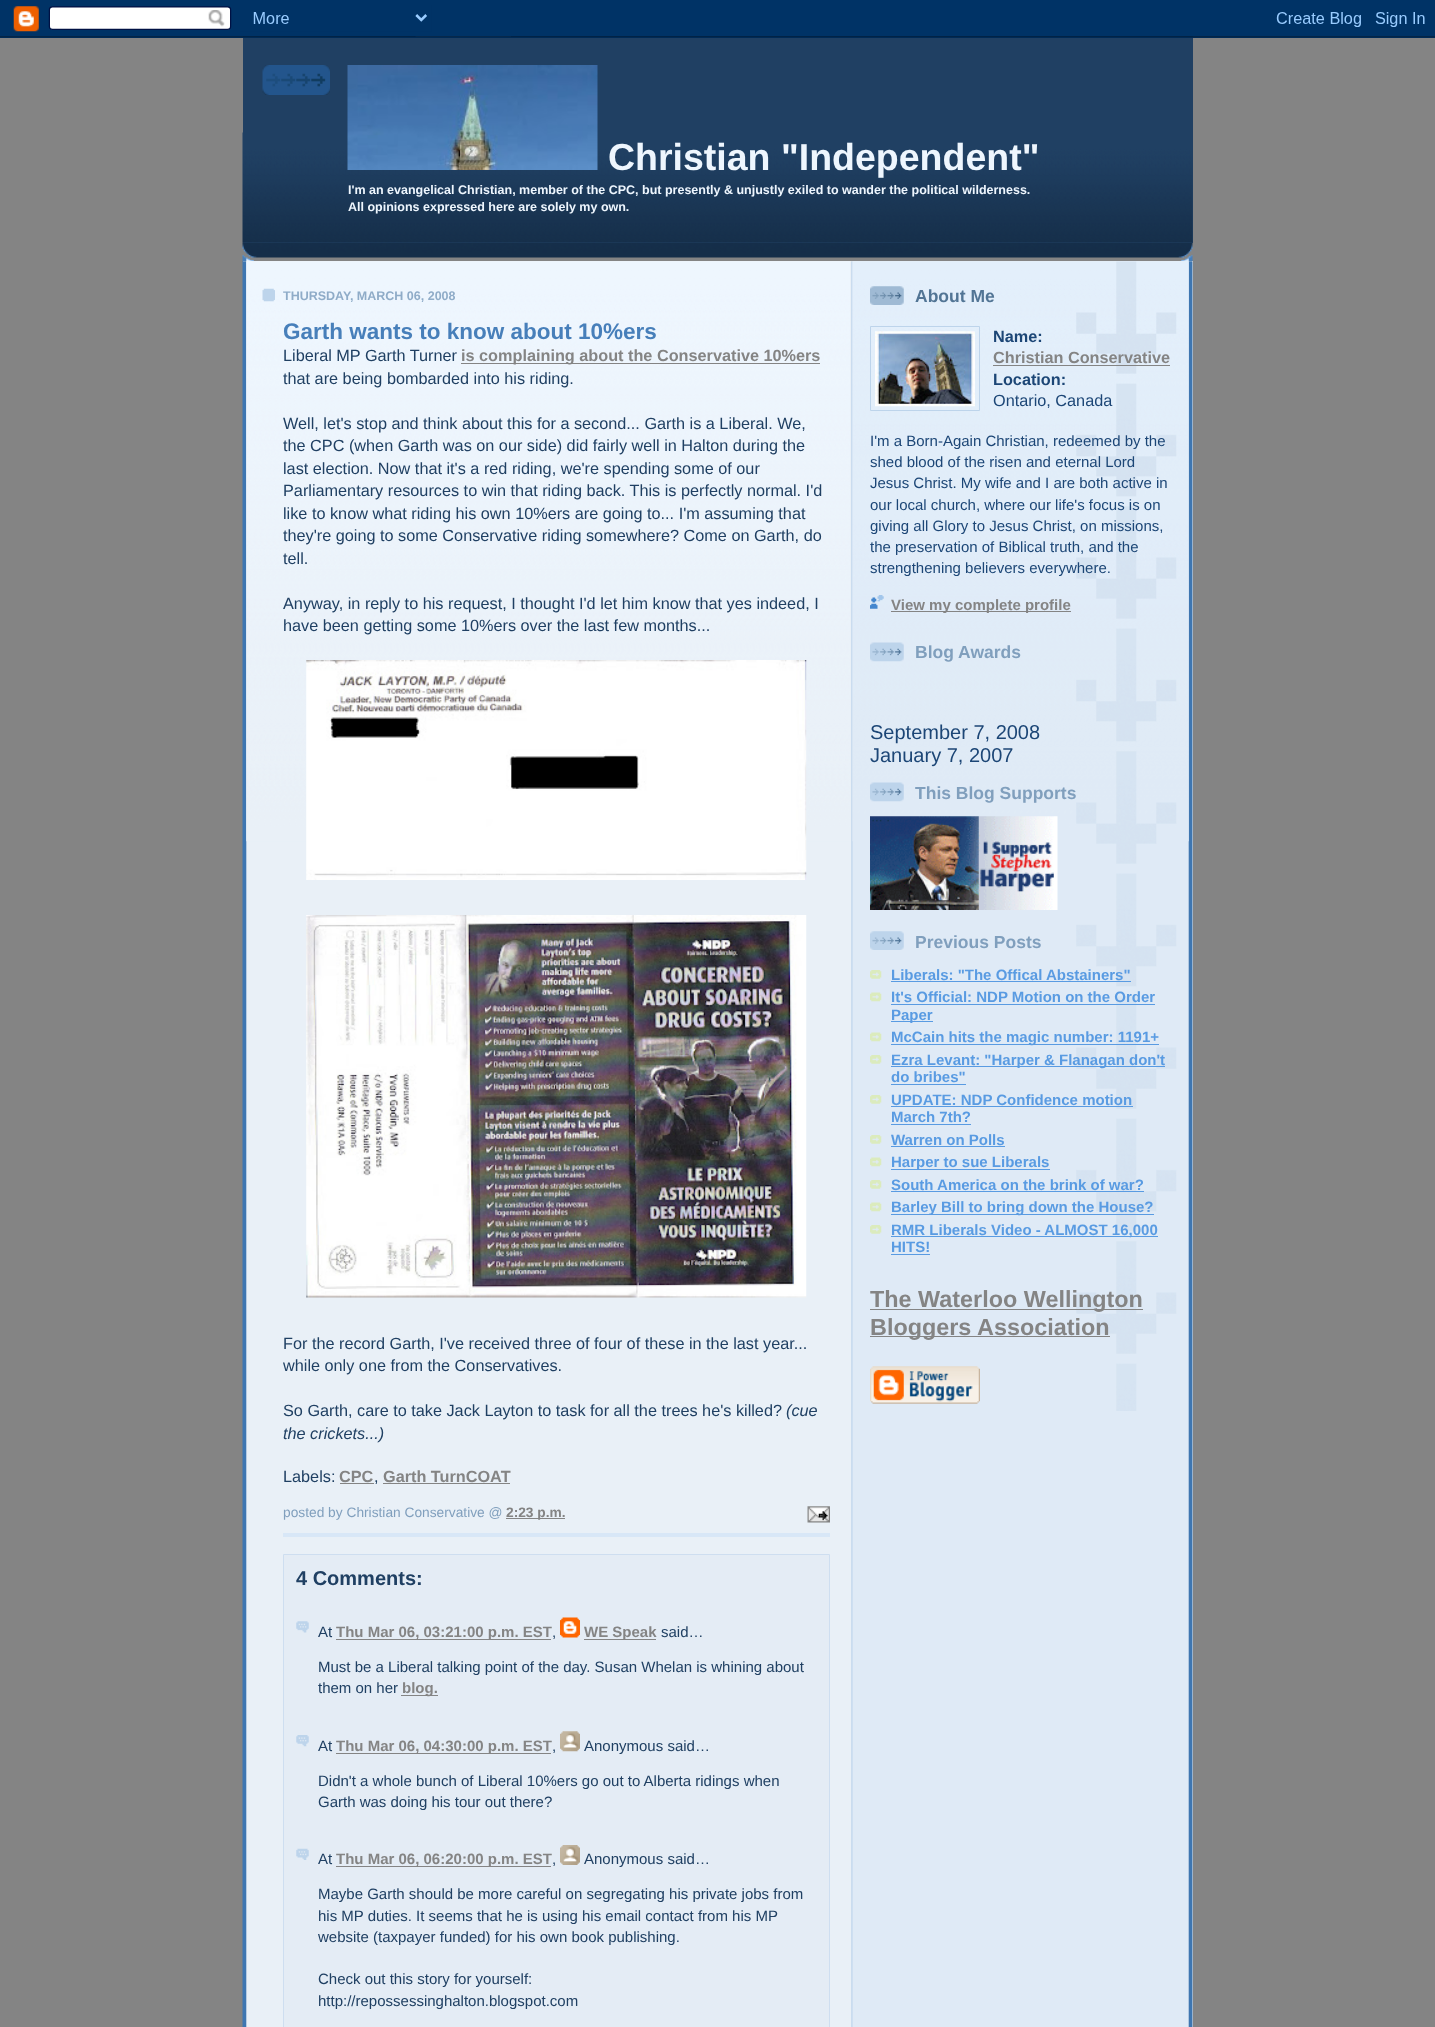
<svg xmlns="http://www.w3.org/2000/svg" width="1435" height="2027">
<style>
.a{font:bold 37.5px Liberation Sans;fill:#eef6fe}
.b{font:bold 12.5px Liberation Sans;fill:#eef6fe}
.c{font:bold 12.5px Liberation Sans;fill:#8facc8}
.d{font:bold 22.5px Liberation Sans;fill:#477fba}
.e{font:16.25px Liberation Sans;fill:#204063}
.f{font:bold 16.25px Liberation Sans;fill:#848484}
.g{font:italic 16.25px Liberation Sans;fill:#204063}
.h{font:13.75px Liberation Sans;fill:#809fbd}
.i{font:bold 13.75px Liberation Sans;fill:#848484}
.j{font:bold 20px Liberation Sans;fill:#204063}
.k{font:15px Liberation Sans;fill:#204063}
.l{font:bold 15px Liberation Sans;fill:#848484}
.m{font:bold 17.5px Liberation Sans;fill:#527595}
.n{font:bold 16.25px Liberation Sans;fill:#1c4676}
.o{font:16.25px Liberation Sans;fill:#1c4676}
.p{font:15px Liberation Sans;fill:#1c4676}
.q{font:bold 17.5px Liberation Sans;fill:#809fbd}
.r{font:20px Liberation Sans;fill:#1c4676}
.s{font:bold 15px Liberation Sans;fill:#599be2}
.t{font:bold 23.4px Liberation Sans;fill:#848484}
</style>
<rect width="100%" height="100%" fill="#848484"/>
<image href="2.png" x="242" y="242" width="951" height="20"/>
<path fill="#204063" d="M243 36h950v207H243z"/>
<image href="1.png" x="0" y="0" width="1435" height="38"/>
<image href="3.png" x="242" y="132" width="951" height="111"/>
<image href="4.png" x="262" y="65" width="68" height="30"/>
<image href="5.png" x="347" y="65" width="251" height="105"/>
<path fill="#f7f0e9" d="M243 261h950v1766H243z"/>
<image href="6.png" x="242" y="261" width="951" height="1766"/>
<image href="7.png" x="246" y="261" width="604" height="581"/>
<image href="8.png" x="262" y="288" width="13" height="14"/>
<path fill="#d8e7f7" d="M283 1533h547v4H283z"/>
<path fill="#848484" d="M461 363h359v1H461z"/>
<image href="9.png" x="306" y="660" width="501" height="220"/>
<image href="10.png" x="306" y="915" width="501" height="383"/>
<path fill="#848484" d="M340 1483h34v1H340z"/>
<path fill="#848484" d="M383 1483h127v1H383z"/>
<path fill="#848484" d="M506 1518h59v1H506z"/>
<image href="11.png" x="807" y="1506" width="23" height="17"/>
<path fill="#e4ecf5" stroke="#cedef0" d="M283.5 1554.5h546v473H283.5z"/>
<image href="12.png" x="296" y="1621" width="13" height="12"/>
<path fill="#848484" d="M336 1639h215v1H336z"/>
<image href="13.png" x="560" y="1617" width="20" height="21"/>
<path fill="#848484" d="M584 1639h72v1H584z"/>
<path fill="#848484" d="M401 1695h37v1H401z"/>
<image href="14.png" x="296" y="1735" width="13" height="12"/>
<path fill="#848484" d="M336 1753h215v1H336z"/>
<image href="15.png" x="560" y="1731" width="20" height="21"/>
<image href="16.png" x="296" y="1848" width="13" height="12"/>
<path fill="#848484" d="M336 1866h215v1H336z"/>
<image href="17.png" x="560" y="1845" width="20" height="20"/>
<image href="18.png" x="852" y="261" width="337" height="581"/>
<image href="19.png" x="1076" y="261" width="101" height="1150"/>
<image href="20.png" x="870" y="286" width="34" height="19"/>
<path fill="none" stroke="#bdd4eb" d="M870.5 326.5h109v84H870.5z"/>
<image href="21.png" x="875" y="331" width="100" height="76"/>
<path fill="#848484" d="M993 365h177v1H993z"/>
<image href="22.png" x="870" y="595" width="14" height="14"/>
<path fill="#848484" d="M891 611h180v1H891z"/>
<image href="23.png" x="870" y="642" width="34" height="20"/>
<image href="24.png" x="870" y="782" width="34" height="20"/>
<image href="25.png" x="870" y="816" width="188" height="94"/>
<image href="26.png" x="870" y="931" width="34" height="19"/>
<image href="27.png" x="870" y="970" width="12" height="9"/>
<path fill="#599be2" d="M891 981h240v1H891z"/>
<image href="28.png" x="870" y="992" width="12" height="10"/>
<path fill="#599be2" d="M891 1004h264v1H891z"/>
<path fill="#599be2" d="M891 1021h42v1H891z"/>
<image href="28.png" x="870" y="1032" width="12" height="10"/>
<path fill="#599be2" d="M891 1044h268v1H891z"/>
<image href="27.png" x="870" y="1055" width="12" height="9"/>
<path fill="#599be2" d="M891 1066h274v1H891z"/>
<path fill="#599be2" d="M891 1084h75v1H891z"/>
<image href="27.png" x="870" y="1095" width="12" height="9"/>
<path fill="#599be2" d="M891 1106h242v1H891z"/>
<path fill="#599be2" d="M891 1124h80v1H891z"/>
<image href="27.png" x="870" y="1135" width="12" height="9"/>
<path fill="#599be2" d="M891 1146h114v1H891z"/>
<image href="28.png" x="870" y="1157" width="12" height="10"/>
<path fill="#599be2" d="M891 1169h159v1H891z"/>
<image href="27.png" x="870" y="1180" width="12" height="9"/>
<path fill="#599be2" d="M891 1191h253v1H891z"/>
<image href="28.png" x="870" y="1202" width="12" height="10"/>
<path fill="#599be2" d="M891 1214h263v1H891z"/>
<image href="27.png" x="870" y="1225" width="12" height="9"/>
<path fill="#599be2" d="M891 1236h267v1H891z"/>
<path fill="#599be2" d="M891 1254h39v1H891z"/>
<path fill="#848484" d="M870 1309h273v1H870z"/>
<path fill="#848484" d="M870 1336h240v1H870z"/>
<image href="29.png" x="870" y="1366" width="110" height="38"/>
<text class="a" x="608" y="170">Christian "Independent"</text>
<text class="b" x="348" y="194">I'm an evangelical Christian, member of the CPC, but presently &amp; unjustly exiled to wander the political wilderness.</text>
<text class="b" x="348" y="211">All opinions expressed here are solely my own.</text>
<text class="c" x="283" y="300">THURSDAY, MARCH 06, 2008</text>
<text class="d" x="283" y="339">Garth wants to know about 10%ers</text>
<text class="e" x="283" y="361">Liberal MP Garth Turner</text>
<text class="f" x="461" y="361">is complaining about the Conservative 10%ers</text>
<text class="e" x="283" y="384">that are being bombarded into his riding.</text>
<text class="e" x="283" y="429">Well, let's stop and think about this for a second... Garth is a Liberal. We,</text>
<text class="e" x="283" y="451">the CPC (when Garth was on our side) did fairly well in Halton during the</text>
<text class="e" x="283" y="474">last election. Now that it's a red riding, we're spending some of our</text>
<text class="e" x="283" y="496">Parliamentary resources to win that riding back. This is perfectly normal. I'd</text>
<text class="e" x="283" y="519">like to know what riding his own 10%ers are going to... I'm assuming that</text>
<text class="e" x="283" y="541">they're going to some Conservative riding somewhere? Come on Garth, do</text>
<text class="e" x="283" y="564">tell.</text>
<text class="e" x="283" y="609">Anyway, in reply to his request, I thought I'd let him know that yes indeed, I</text>
<text class="e" x="283" y="631">have been getting some 10%ers over the last few months...</text>
<text class="e" x="283" y="1349">For the record Garth, I've received three of four of these in the last year...</text>
<text class="e" x="283" y="1371">while only one from the Conservatives.</text>
<text class="e" x="283" y="1416">So Garth, care to take Jack Layton to task for all the trees he's killed?</text>
<text class="g" x="786" y="1416">(cue</text>
<text class="g" x="283" y="1439">the crickets...)</text>
<text class="e" x="283" y="1482">Labels:</text>
<text class="f" x="339" y="1482">CPC</text>
<text class="e" x="374" y="1482">,</text>
<text class="f" x="383" y="1482">Garth TurnCOAT</text>
<text class="h" x="283" y="1517">posted by Christian Conservative @</text>
<text class="i" x="506" y="1517">2:23 p.m.</text>
<text class="j" x="296" y="1585">4 Comments:</text>
<text class="k" x="318" y="1637">At</text>
<text class="l" x="336" y="1637">Thu Mar 06, 03:21:00 p.m. EST</text>
<text class="k" x="552" y="1637">,</text>
<text class="l" x="584" y="1637">WE Speak</text>
<text class="k" x="661" y="1637">said…</text>
<text class="k" x="318" y="1672">Must be a Liberal talking point of the day. Susan Whelan is whining about</text>
<text class="k" x="318" y="1693">them on her</text>
<text class="l" x="402" y="1693">blog.</text>
<text class="k" x="318" y="1751">At</text>
<text class="l" x="336" y="1751">Thu Mar 06, 04:30:00 p.m. EST</text>
<text class="k" x="552" y="1751">,</text>
<text class="k" x="584" y="1751">Anonymous said…</text>
<text class="k" x="318" y="1786">Didn't a whole bunch of Liberal 10%ers go out to Alberta ridings when</text>
<text class="k" x="318" y="1807">Garth was doing his tour out there?</text>
<text class="k" x="318" y="1864">At</text>
<text class="l" x="336" y="1864">Thu Mar 06, 06:20:00 p.m. EST</text>
<text class="k" x="552" y="1864">,</text>
<text class="k" x="584" y="1864">Anonymous said…</text>
<text class="k" x="318" y="1899">Maybe Garth should be more careful on segregating his private jobs from</text>
<text class="k" x="318" y="1921">his MP duties. It seems that he is using his email contact from his MP</text>
<text class="k" x="318" y="1942">website (taxpayer funded) for his own book publishing.</text>
<text class="k" x="318" y="1984">Check out this story for yourself:</text>
<text class="k" x="318" y="2006">http://repossessinghalton.blogspot.com</text>
<text class="m" x="915" y="302">About Me</text>
<text class="n" x="993" y="342">Name:</text>
<text class="f" x="993" y="363">Christian Conservative</text>
<text class="n" x="993" y="385">Location:</text>
<text class="o" x="993" y="406">Ontario, Canada</text>
<text class="p" x="870" y="446">I'm a Born-Again Christian, redeemed by the</text>
<text class="p" x="870" y="467">shed blood of the risen and eternal Lord</text>
<text class="p" x="870" y="488">Jesus Christ. My wife and I are both active in</text>
<text class="p" x="870" y="510">our local church, where our life's focus is on</text>
<text class="p" x="870" y="531">giving all Glory to Jesus Christ, on missions,</text>
<text class="p" x="870" y="552">the preservation of Biblical truth, and the</text>
<text class="p" x="870" y="573">strengthening believers everywhere.</text>
<text class="l" x="891" y="610">View my complete profile</text>
<text class="q" x="915" y="658">Blog Awards</text>
<text class="r" x="870" y="739">September 7, 2008</text>
<text class="r" x="870" y="762">January 7, 2007</text>
<text class="q" x="915" y="799">This Blog Supports</text>
<text class="q" x="915" y="948">Previous Posts</text>
<text class="s" x="891" y="980">Liberals: "The Offical Abstainers"</text>
<text class="s" x="891" y="1002">It's Official: NDP Motion on the Order</text>
<text class="s" x="891" y="1020">Paper</text>
<text class="s" x="891" y="1042">McCain hits the magic number: 1191+</text>
<text class="s" x="891" y="1065">Ezra Levant: "Harper &amp; Flanagan don't</text>
<text class="s" x="891" y="1082">do bribes"</text>
<text class="s" x="891" y="1105">UPDATE: NDP Confidence motion</text>
<text class="s" x="891" y="1122">March 7th?</text>
<text class="s" x="891" y="1145">Warren on Polls</text>
<text class="s" x="891" y="1167">Harper to sue Liberals</text>
<text class="s" x="891" y="1190">South America on the brink of war?</text>
<text class="s" x="891" y="1212">Barley Bill to bring down the House?</text>
<text class="s" x="891" y="1235">RMR Liberals Video - ALMOST 16,000</text>
<text class="s" x="891" y="1252">HITS!</text>
<text class="t" x="870" y="1307">The Waterloo Wellington</text>
<text class="t" x="870" y="1335">Bloggers Association</text>
</svg>
